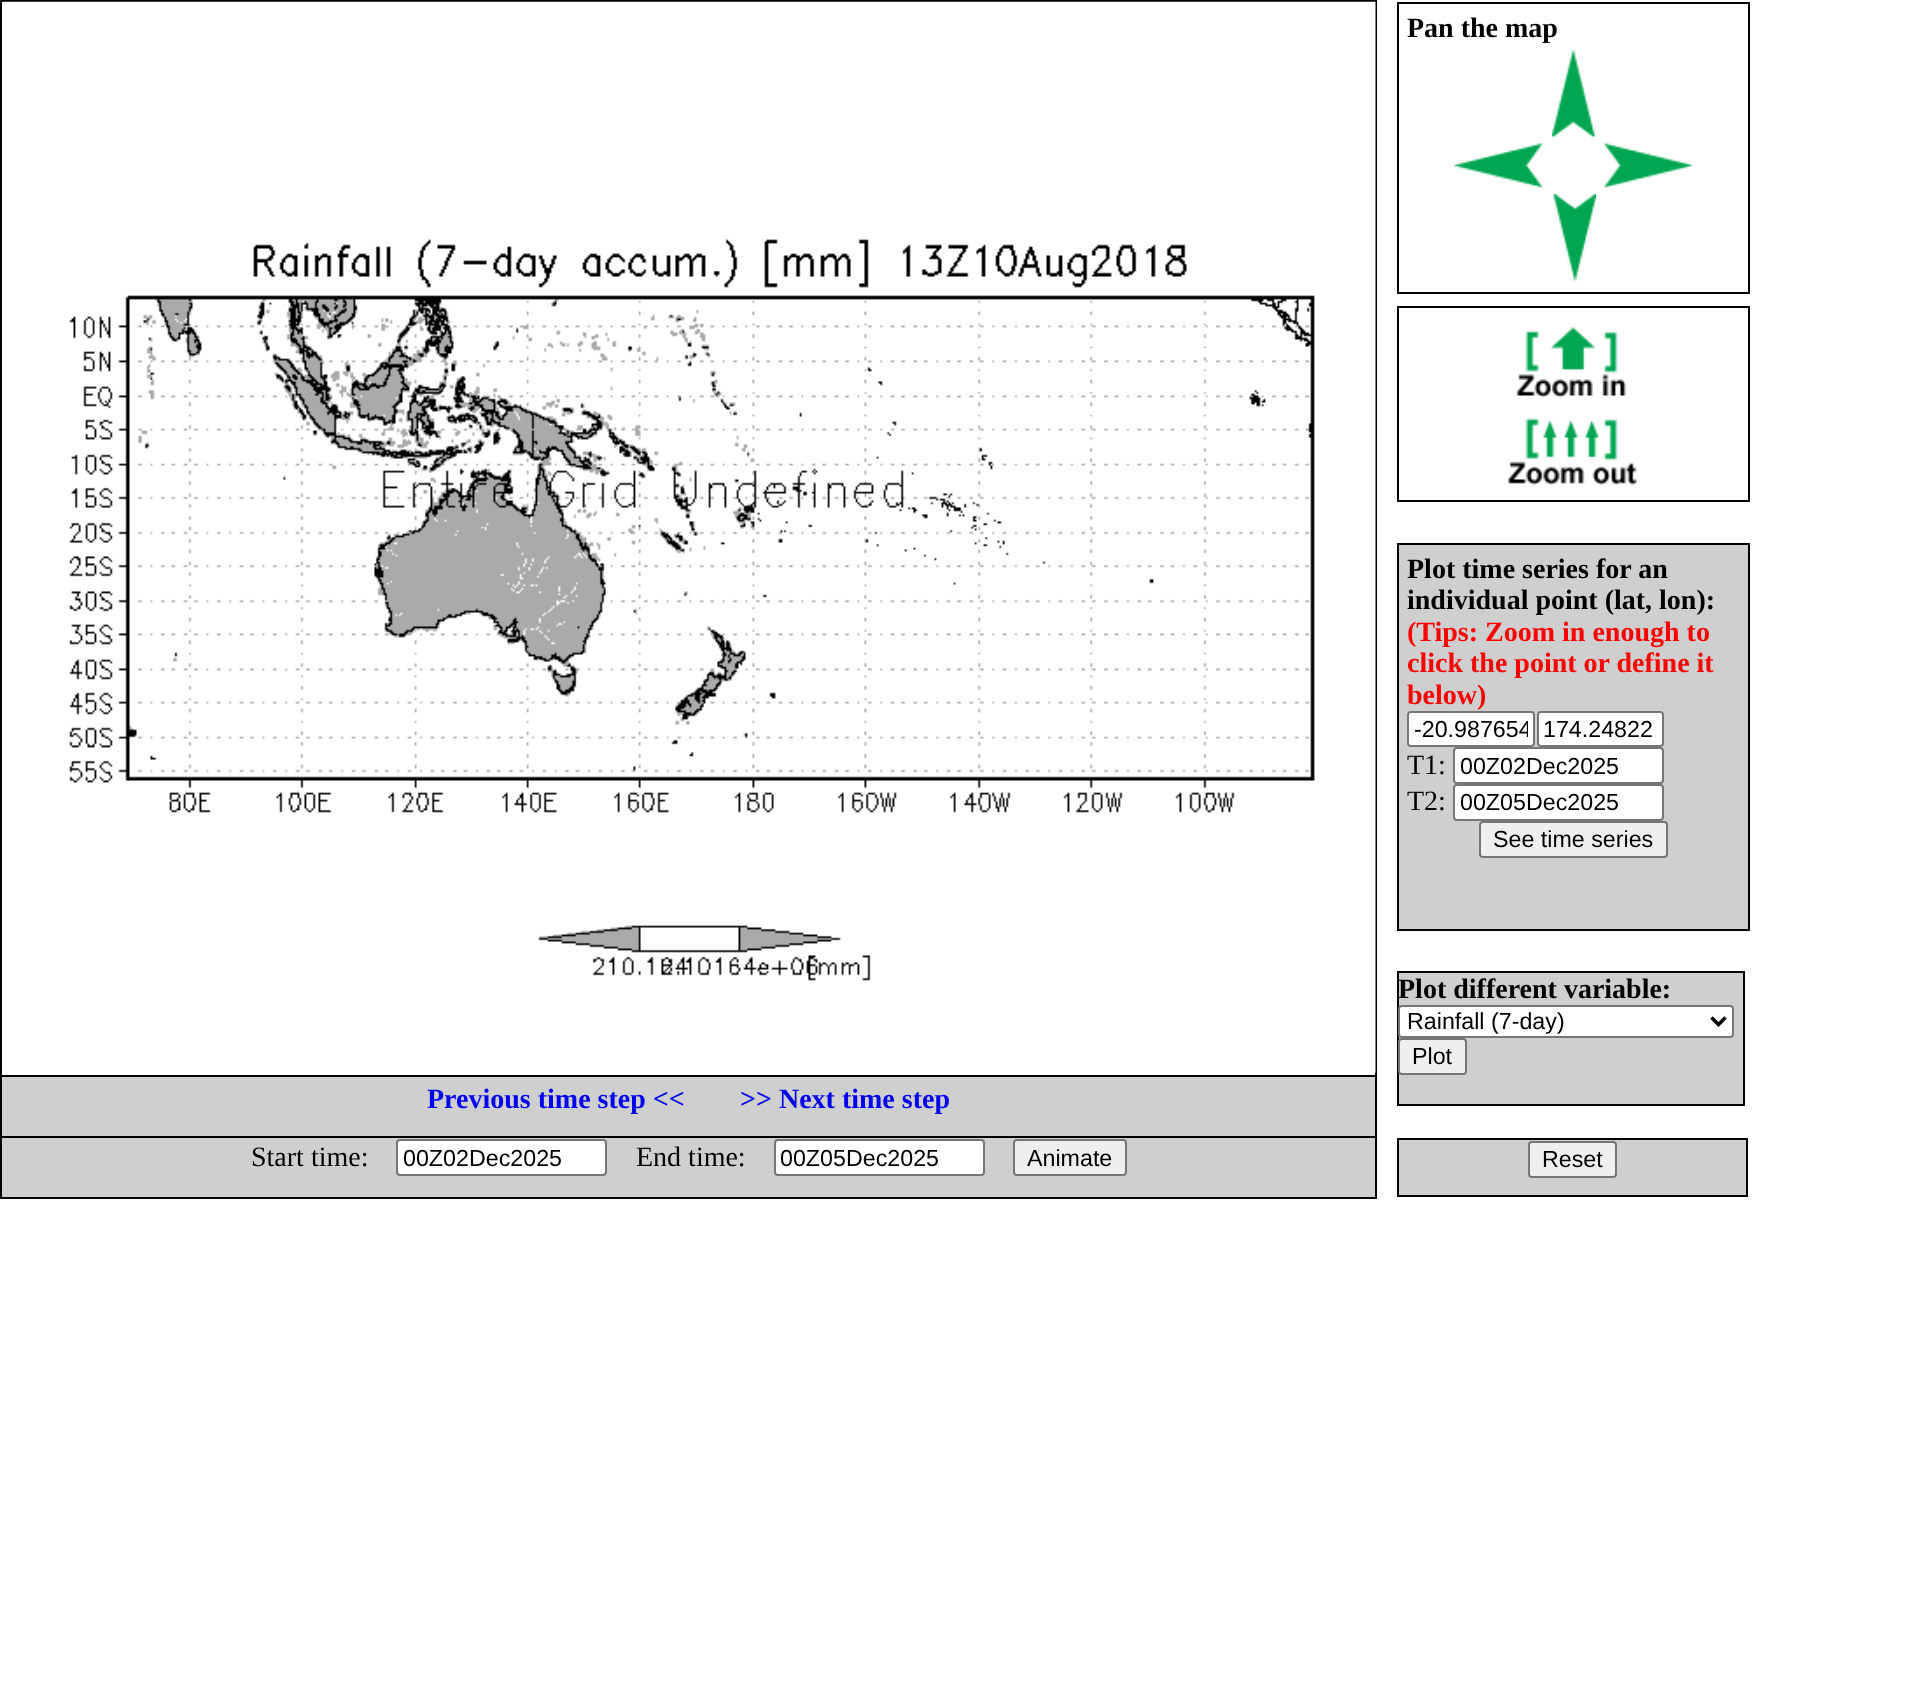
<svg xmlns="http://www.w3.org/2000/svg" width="1928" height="1685">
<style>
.a{font:bold 28px Liberation Serif;fill:#000}
.b{font:bold 28px Liberation Serif;fill:#f00}
.c{font:23.25px Liberation Sans;fill:#000}
.d{font:28px Liberation Serif;fill:#000}
.e{font:bold 28px Liberation Serif;fill:#00e}
</style>
<defs>
<clipPath id="clip1"><path d="M1414 716h114v26H1414z"/></clipPath>
</defs>
<rect width="100%" height="100%" fill="#fff"/>
<path fill="none" stroke="#000" stroke-width="2" d="M1 1h1375v1197H1z"/>
<image href="1.png" x="3" y="1" width="1373" height="1072"/>
<path fill="none" stroke="#000" stroke-width="2" d="M1398 3h351v290H1398z"/>
<image href="2.png" x="1552" y="49" width="44" height="88"/>
<image href="3.png" x="1454" y="143" width="88" height="45"/>
<image href="4.png" x="1604" y="143" width="89" height="45"/>
<image href="5.png" x="1552" y="194" width="44" height="88"/>
<path fill="none" stroke="#000" stroke-width="2" d="M1398 307h351v194H1398z"/>
<image href="6.png" x="1516" y="327" width="111" height="71"/>
<image href="7.png" x="1508" y="417" width="129" height="68"/>
<path fill="#cfcfcf" stroke="#000" stroke-width="2" d="M1398 544h351v386H1398z"/>
<rect fill="#fff" stroke="#767676" stroke-width="2" x="1408" y="712" width="126" height="34" rx="3"/>
<rect fill="#fff" stroke="#767676" stroke-width="2" x="1538" y="712" width="125" height="34" rx="3"/>
<rect fill="#fff" stroke="#767676" stroke-width="2" x="1454" y="748" width="209" height="35" rx="3"/>
<rect fill="#fff" stroke="#767676" stroke-width="2" x="1454" y="785" width="209" height="35" rx="3"/>
<rect fill="#efefef" stroke="#767676" stroke-width="2" x="1480" y="822" width="187" height="35" rx="3"/>
<path fill="#cfcfcf" stroke="#000" stroke-width="2" d="M1398 972h346v133H1398z"/>
<rect fill="#fff" stroke="#767676" stroke-width="2" x="1399" y="1006" width="334" height="31" rx="3"/>
<path fill="none" stroke="#000" stroke-width="3.5" d="M1711.5 1017.5l7 7l7-7"/>
<rect fill="#efefef" stroke="#767676" stroke-width="2" x="1399" y="1039" width="67" height="35" rx="3"/>
<path fill="#cfcfcf" stroke="#000" stroke-width="2" d="M1 1076h1375v61H1z"/>
<path fill="#cfcfcf" d="M2 1138h1373v59H2z"/>
<rect fill="#fff" stroke="#767676" stroke-width="2" x="397" y="1140" width="209" height="35" rx="3"/>
<rect fill="#fff" stroke="#767676" stroke-width="2" x="775" y="1140" width="209" height="35" rx="3"/>
<rect fill="#efefef" stroke="#767676" stroke-width="2" x="1014" y="1140" width="112" height="35" rx="3"/>
<path fill="#cfcfcf" stroke="#000" stroke-width="2" d="M1398 1139h349v57H1398z"/>
<rect fill="#efefef" stroke="#767676" stroke-width="2" x="1529" y="1142" width="87" height="35" rx="3"/>
<text class="a" x="1407" y="37">Pan the map</text>
<text class="a" x="1407" y="578">Plot time series for an</text>
<text class="a" x="1407" y="609">individual point (lat, lon):</text>
<text class="b" x="1407" y="641">(Tips: Zoom in enough to</text>
<text class="b" x="1407" y="672">click the point or define it</text>
<text class="b" x="1407" y="704">below)</text>
<g clip-path="url(#clip1)">
<text class="c" x="1414" y="737">-20.987654</text>
</g>
<text class="c" x="1543" y="737">174.24822</text>
<text class="d" x="1407" y="774">T1:</text>
<text class="c" x="1460" y="774">00Z02Dec2025</text>
<text class="d" x="1407" y="810">T2:</text>
<text class="c" x="1460" y="810">00Z05Dec2025</text>
<text class="c" x="1493" y="847">See time series</text>
<text class="a" x="1398" y="998">Plot different variable:</text>
<text class="c" x="1407" y="1029">Rainfall (7-day)</text>
<text class="c" x="1412" y="1064">Plot</text>
<text class="e" x="427" y="1108">Previous time step &lt;&lt;</text>
<text class="e" x="740" y="1108">&gt;&gt; Next time step</text>
<text class="d" x="251" y="1166">Start time:</text>
<text class="c" x="403" y="1166">00Z02Dec2025</text>
<text class="d" x="636" y="1166">End time:</text>
<text class="c" x="780" y="1166">00Z05Dec2025</text>
<text class="c" x="1027" y="1166">Animate</text>
<text class="c" x="1542" y="1167">Reset</text>
</svg>
